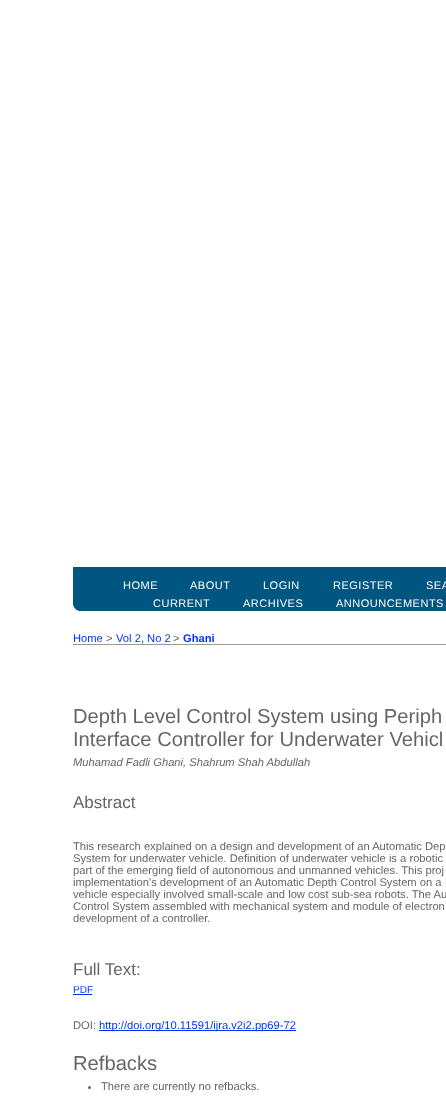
<svg xmlns="http://www.w3.org/2000/svg" width="446" height="1099">
<style>
.a{font:11px Liberation Sans;letter-spacing:0.5px;fill:#fff}
.b{font:11.2px Liberation Sans;fill:#03f}
.c{font:11.2px Liberation Sans;fill:#666}
.d{font:bold 11.2px Liberation Sans;fill:#03f}
.e{font:20.2px Liberation Sans;fill:#666}
.f{font:italic 11.2px Liberation Sans;fill:#666}
.g{font:17px Liberation Sans;fill:#666}
.h{font:10px Liberation Sans;fill:#03f}
</style>
<defs>
<clipPath id="clip1"><path d="M73 567h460v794H73z"/></clipPath>
</defs>
<rect width="100%" height="100%" fill="#fff"/>
<path fill="#005680" d="M73 567h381v36c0 4.5-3.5 8-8 8h-365c-4.5 0-8-3.5-8-8z"/>
<g clip-path="url(#clip1)">
<path fill="#005680" fill-rule="evenodd" d="M73 560h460v43c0 4-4 8-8 8h-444c-4 0-8-4-8-8zm1 0h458v43c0 4-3 7-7 7h-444c-4 0-7-3-7-7z"/>
</g>
<path fill="#999" d="M73 644h373v1H73z"/>
<path fill="#03f" d="M73 994h19v1H73z"/>
<path fill="#03f" d="M99 1030h197v1H99z"/>
<circle fill="#666" cx="89.5" cy="1087.5" r="1.5"/>
<text class="a" x="123" y="589">HOME</text>
<text class="a" x="190" y="589">ABOUT</text>
<text class="a" x="263" y="589">LOGIN</text>
<text class="a" x="333" y="589">REGISTER</text>
<text class="a" x="426" y="589">SEA</text>
<text class="a" x="153" y="607">CURRENT</text>
<text class="a" x="243" y="607">ARCHIVES</text>
<text class="a" x="336" y="607">ANNOUNCEMENTS</text>
<text class="b" x="73" y="642">Home</text>
<text class="c" x="106" y="642">&gt;</text>
<text class="b" x="116" y="642">Vol 2, No 2</text>
<text class="c" x="173" y="642">&gt;</text>
<text class="d" x="183" y="642">Ghani</text>
<text class="e" x="73" y="723">Depth Level Control System using Periph</text>
<text class="e" x="73" y="746">Interface Controller for Underwater Vehicl</text>
<text class="f" x="73" y="766">Muhamad Fadli Ghani, Shahrum Shah Abdullah</text>
<text class="g" x="73" y="808">Abstract</text>
<text class="c" x="73" y="850">This research explained on a design and development of an Automatic Dep</text>
<text class="c" x="73" y="862">System for underwater vehicle. Definition of underwater vehicle is a robotic</text>
<text class="c" x="73" y="874">part of the emerging field of autonomous and unmanned vehicles. This proj</text>
<text class="c" x="73" y="886">implementation’s development of an Automatic Depth Control System on a</text>
<text class="c" x="73" y="898">vehicle especially involved small-scale and low cost sub-sea robots. The Au</text>
<text class="c" x="73" y="910">Control System assembled with mechanical system and module of electron</text>
<text class="c" x="73" y="922">development of a controller.</text>
<text class="g" x="73" y="975">Full Text:</text>
<text class="h" x="73" y="993">PDF</text>
<text class="c" x="73" y="1029">DOI:</text>
<text class="b" x="99" y="1029">http://doi.org/10.11591/ijra.v2i2.pp69-72</text>
<text class="e" x="73" y="1070">Refbacks</text>
<text class="c" x="101" y="1090">There are currently no refbacks.</text>
</svg>
